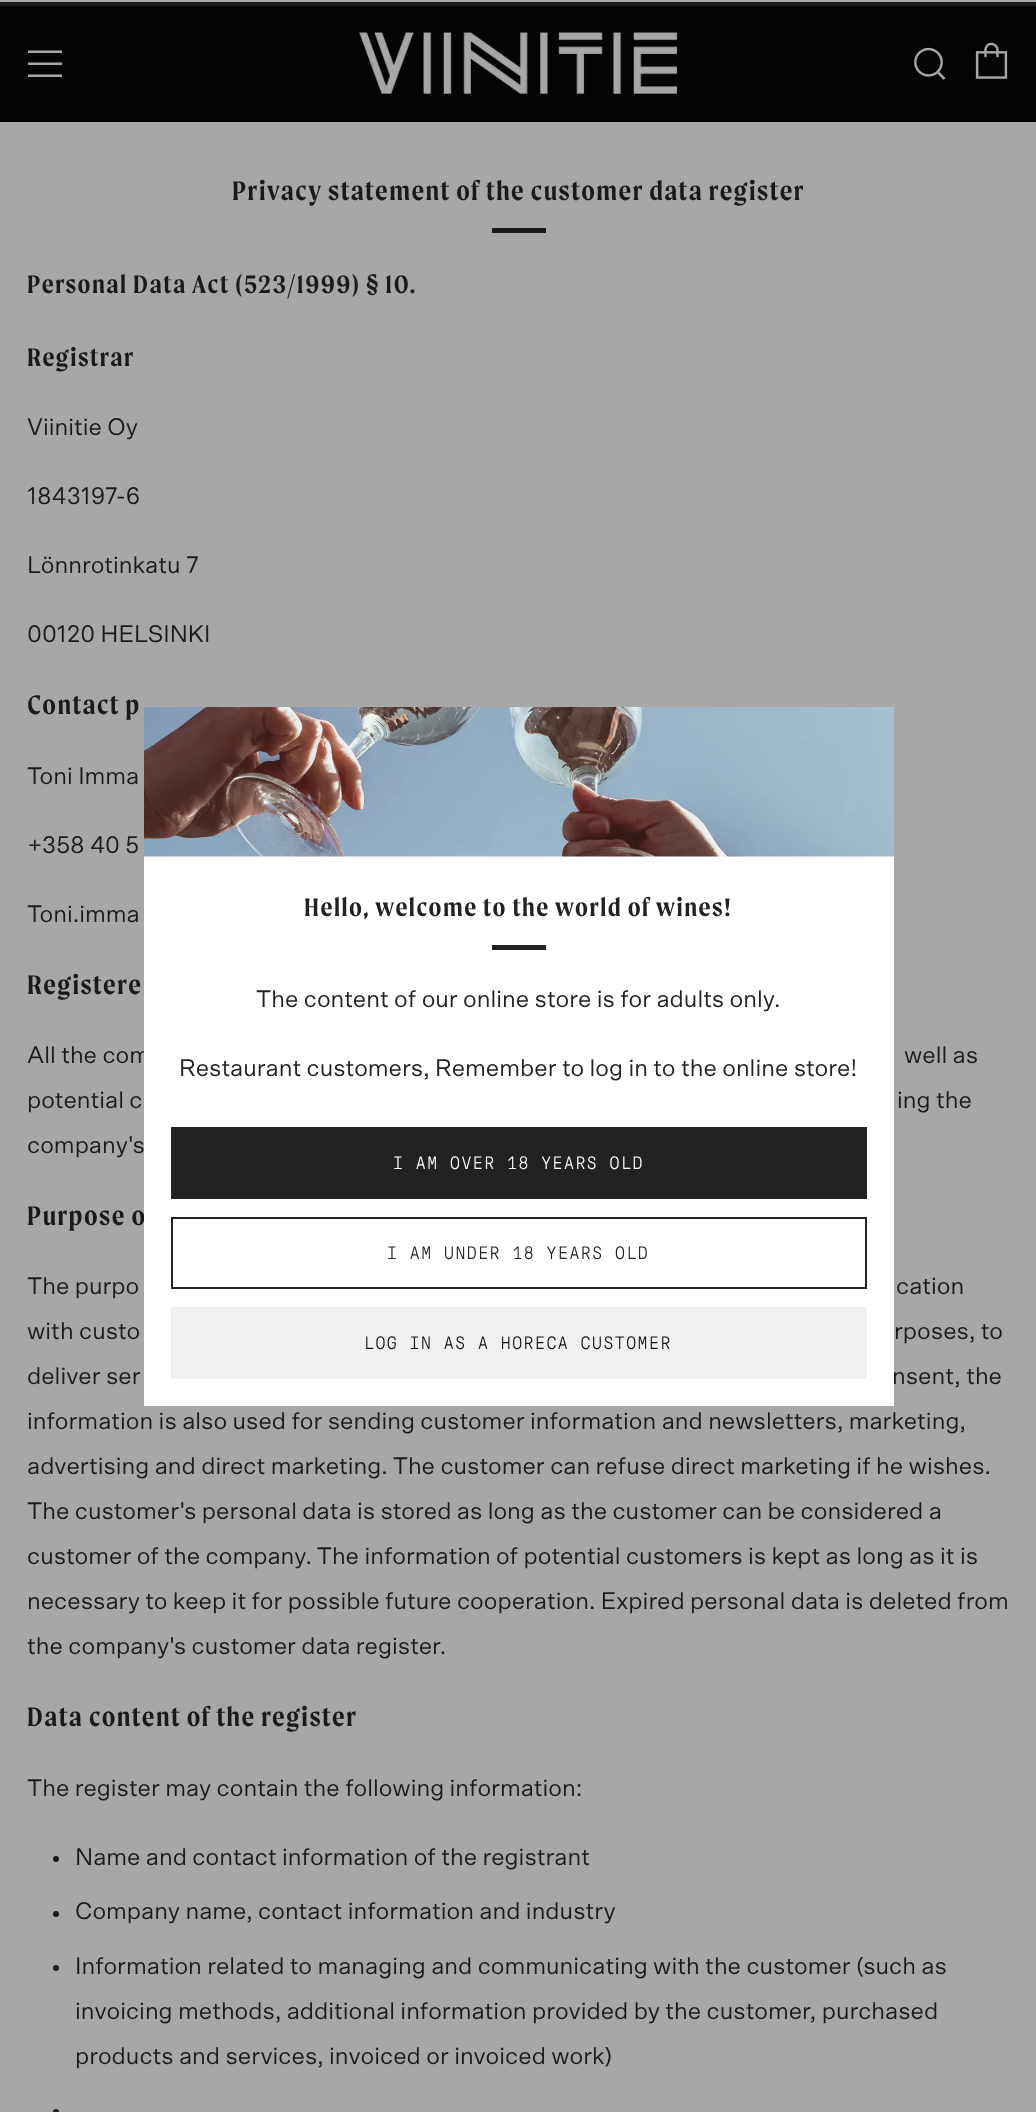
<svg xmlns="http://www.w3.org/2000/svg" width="1036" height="2112">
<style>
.a{font:600 28.5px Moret;letter-spacing:1.5px;fill:#1a1a1a}
.b{font:600 27px Moret;letter-spacing:1.5px;fill:#1a1a1a}
.c{font:24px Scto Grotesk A;fill:#1a1a1a}
.d{font:600 27px Moret;letter-spacing:1.5px;fill:#222}
.e{font:24px Scto Grotesk A;fill:#222}
.f{font:300 18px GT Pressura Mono;letter-spacing:1.5px;fill:#fff}
.g{font:300 18px GT Pressura Mono;letter-spacing:1.5px;fill:#222}
.h{font:300 18px GT Pressura Mono;letter-spacing:1.5px;fill:#111}
</style>
<rect width="100%" height="100%" fill="#a7a7a7"/>
<path fill="#1a1a1a" d="M0 2h1036v4H0z"/>
<path fill="#040404" d="M0 6h1036v116H0z"/>
<path fill="#a7a7a7" d="M28 53h34v-2.5h-34zm0 24h34v-2.5h-34zm0-12h34v-2.5h-34z"/>
<image href="1.png" x="359" y="32" width="319" height="62"/>
<image href="2.png" x="914" y="47" width="32" height="33"/>
<image href="3.png" x="975" y="42" width="33" height="37"/>
<path fill="#1a1a1a" d="M492 228h54v5H492z"/>
<circle fill="#1a1a1a" cx="56" cy="1859" r="3"/>
<circle fill="#1a1a1a" cx="56" cy="1914" r="3"/>
<circle fill="#1a1a1a" cx="56" cy="1968" r="3"/>
<circle fill="#1a1a1a" cx="56" cy="2112" r="3"/>
<text class="a" x="232" y="200">Privacy statement of the customer data register</text>
<text class="b" x="27" y="293">Personal Data Act (523/1999) § 10.</text>
<text class="b" x="27" y="366">Registrar</text>
<text class="c" x="27" y="435">Viinitie Oy</text>
<text class="c" x="27" y="504">1843197-6</text>
<text class="c" x="27" y="573">Lönnrotinkatu 7</text>
<text class="c" x="27" y="642">00120 HELSINKI</text>
<text class="a" x="27" y="714">Contact p</text>
<text class="c" x="27" y="784">Toni Imma</text>
<text class="c" x="27" y="853">+358 40 5</text>
<text class="c" x="27" y="922">Toni.imma</text>
<text class="a" x="27" y="994">Registere</text>
<text class="c" x="27" y="1063">All the com</text>
<text class="c" x="904" y="1063">well as</text>
<text class="c" x="27" y="1108">potential c</text>
<text class="c" x="897" y="1108">ing the</text>
<text class="c" x="27" y="1153">company's</text>
<text class="a" x="27" y="1225">Purpose o</text>
<text class="c" x="27" y="1294">The purpo</text>
<text class="c" x="896" y="1294">cation</text>
<text class="c" x="27" y="1339">with custo</text>
<text class="c" x="894" y="1339">rposes, to</text>
<text class="c" x="27" y="1384">deliver ser</text>
<text class="c" x="892" y="1384">nsent, the</text>
<text class="c" x="27" y="1429">information is also used for sending customer information and newsletters, marketing,</text>
<text class="c" x="27" y="1474">advertising and direct marketing. The customer can refuse direct marketing if he wishes.</text>
<text class="c" x="27" y="1519">The customer's personal data is stored as long as the customer can be considered a</text>
<text class="c" x="27" y="1564">customer of the company. The information of potential customers is kept as long as it is</text>
<text class="c" x="27" y="1609">necessary to keep it for possible future cooperation. Expired personal data is deleted from</text>
<text class="c" x="27" y="1654">the company's customer data register.</text>
<text class="a" x="27" y="1726">Data content of the register</text>
<text class="c" x="27" y="1796">The register may contain the following information:</text>
<text class="c" x="75" y="1865">Name and contact information of the registrant</text>
<text class="c" x="75" y="1919">Company name, contact information and industry</text>
<text class="c" x="75" y="1974">Information related to managing and communicating with the customer (such as</text>
<text class="c" x="75" y="2019">invoicing methods, additional information provided by the customer, purchased</text>
<text class="c" x="75" y="2064">products and services, invoiced or invoiced work)</text>
<path fill="#fff" d="M144 856h750v550H144z"/>
<image href="4.png" x="144" y="707" width="750" height="150"/>
<text class="d" x="304" y="916">Hello, welcome to the world of wines!</text>
<path fill="#222" d="M492 945h54v5H492z"/>
<text class="e" x="256" y="1007">The content of our online store is for adults only.</text>
<text class="e" x="179" y="1076">Restaurant customers, Remember to log in to the online store!</text>
<path fill="#222" d="M171 1127h696v72H171z"/>
<text class="f" x="393" y="1169">I AM OVER 18 YEARS OLD</text>
<path fill="none" stroke="#222" stroke-width="2" d="M172 1218h694v70H172z"/>
<text class="g" x="387" y="1259">I AM UNDER 18 YEARS OLD</text>
<path fill="#f0f0f0" d="M171 1307h696v72H171z"/>
<text class="h" x="364" y="1349">LOG IN AS A HORECA CUSTOMER</text>
</svg>
